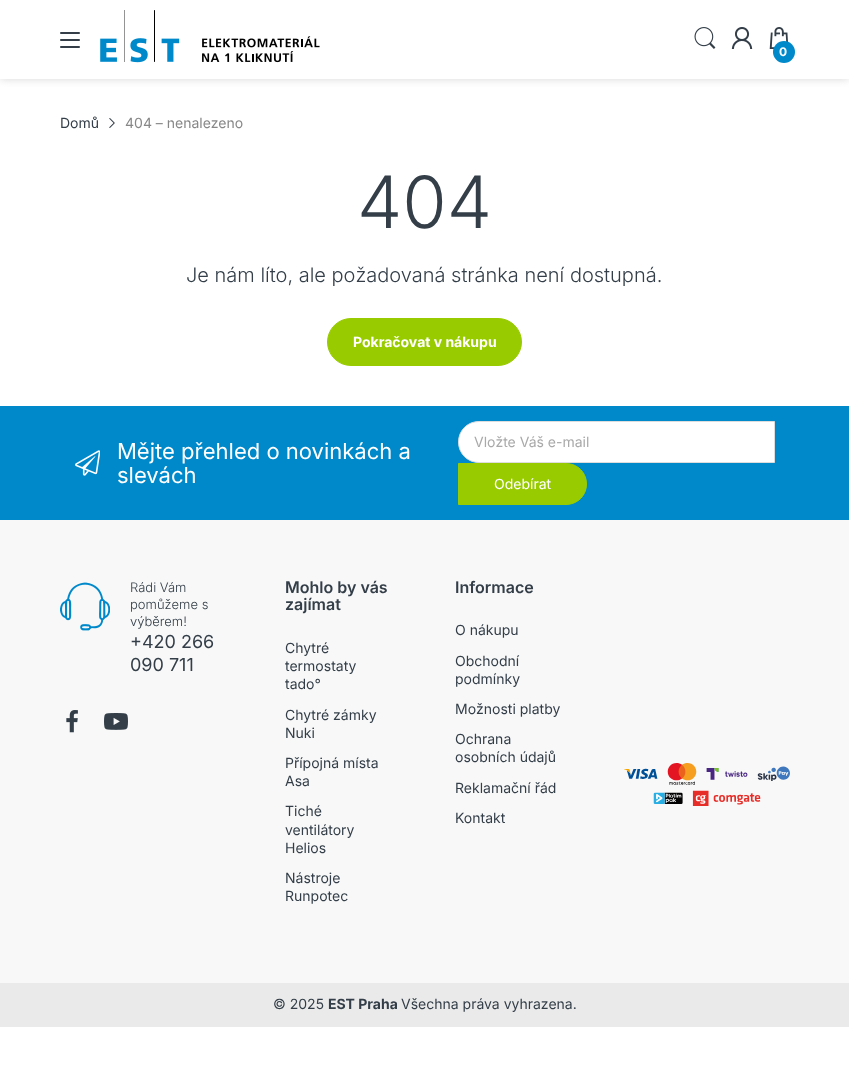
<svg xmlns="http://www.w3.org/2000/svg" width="849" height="1085">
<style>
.a{font:bold 12px Inter;fill:#fff}
.b{font:14px Inter;fill:#333e48}
.c{font:14px Inter;fill:#878787}
.d{font:300 72px Inter;fill:#333e48}
.e{font:300 20px Inter;fill:#333e48}
.f{font:bold 14px Inter;fill:#fff}
.g{font:22px Inter;fill:#fff}
.h{font:14px Inter;fill:#a9a9a9}
.i{font:14px Inter;fill:#fff}
.j{font:300 13px Inter;fill:#333e48}
.k{font:18px Inter;fill:#333e48}
.l{font:600 16px Inter;fill:#333e48}
.m{font:bold 14px Inter;fill:#333e48}
</style>
<defs>
<clipPath id="clip1"><path d="M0 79h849v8H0z"/></clipPath>
</defs>
<rect width="100%" height="100%" fill="#fff"/>
<g clip-path="url(#clip1)">
<path fill="#c9c9c9bf" filter="blur(4px)" d="M0 0h849v79H0z"/>
</g>
<image href="1.png" x="60" y="32" width="20" height="16"/>
<image href="2.png" x="100" y="10" width="220" height="53"/>
<image href="3.png" x="694" y="27" width="22" height="22"/>
<image href="4.png" x="731" y="27" width="22" height="22"/>
<image href="5.png" x="769" y="27" width="20" height="22"/>
<circle fill="#0089ca" cx="784" cy="52" r="11"/>
<image href="6.png" x="109" y="118" width="6" height="10"/>
<rect fill="#9c0" stroke="#9c0" x="327.5" y="318.5" width="194" height="47" rx="23.5"/>
<path fill="#0089ca" d="M0 406h849v114H0z"/>
<image href="7.png" x="75" y="450" width="25" height="26"/>
<path fill="#fff" stroke="#ddd" d="M479 421.5h295.5v41h-295.5c-11.5 0-20.5-9-20.5-20.5c0-11.5 9-20.5 20.5-20.5z"/>
<path fill="#9c0" stroke="#9c0" d="M458.5 463.5h107.5c11.5 0 20.5 9 20.5 20.5c0 11.5-9 20.5-20.5 20.5h-107.5z"/>
<path fill="#f8f8f8" d="M0 520h849v463H0z"/>
<image href="8.png" x="60" y="582" width="50" height="49"/>
<image href="9.png" x="66" y="710" width="12" height="23"/>
<image href="10.png" x="104" y="713" width="24" height="17"/>
<image href="11.png" x="624" y="763" width="166" height="43"/>
<path fill="#eaeaea" d="M0 983h849v44H0z"/>
<text class="a" x="779" y="56">0</text>
<text class="b" x="60" y="128">Domů</text>
<text class="c" x="125" y="128">404 – nenalezeno</text>
<text class="d" x="357" y="228">404</text>
<text class="e" x="186" y="282">Je nám líto, ale požadovaná stránka není dostupná.</text>
<text class="f" x="353" y="347">Pokračovat v nákupu</text>
<text class="g" x="117" y="459">Mějte přehled o novinkách a</text>
<text class="g" x="117" y="483">slevách</text>
<text class="h" x="474" y="447">Vložte Váš e-mail</text>
<text class="i" x="494" y="489">Odebírat</text>
<text class="j" x="130" y="592">Rádi Vám</text>
<text class="j" x="130" y="609">pomůžeme s</text>
<text class="j" x="130" y="626">výběrem!</text>
<text class="k" x="130" y="648">+420 266</text>
<text class="k" x="130" y="671">090 711</text>
<text class="l" x="285" y="593">Mohlo by vás</text>
<text class="l" x="285" y="610">zajímat</text>
<text class="b" x="285" y="653">Chytré</text>
<text class="b" x="285" y="671">termostaty</text>
<text class="b" x="285" y="689">tado°</text>
<text class="b" x="285" y="720">Chytré zámky</text>
<text class="b" x="285" y="738">Nuki</text>
<text class="b" x="285" y="768">Přípojná místa</text>
<text class="b" x="285" y="786">Asa</text>
<text class="b" x="285" y="816">Tiché</text>
<text class="b" x="285" y="835">ventilátory</text>
<text class="b" x="285" y="853">Helios</text>
<text class="b" x="285" y="883">Nástroje</text>
<text class="b" x="285" y="901">Runpotec</text>
<text class="l" x="455" y="593">Informace</text>
<text class="b" x="455" y="635">O nákupu</text>
<text class="b" x="455" y="666">Obchodní</text>
<text class="b" x="455" y="684">podmínky</text>
<text class="b" x="455" y="714">Možnosti platby</text>
<text class="b" x="455" y="744">Ochrana</text>
<text class="b" x="455" y="762">osobních údajů</text>
<text class="b" x="455" y="793">Reklamační řád</text>
<text class="b" x="455" y="823">Kontakt</text>
<text class="b" x="273" y="1009">© 2025</text>
<text class="m" x="328" y="1009">EST Praha</text>
<text class="b" x="401" y="1009">Všechna práva vyhrazena.</text>
</svg>
